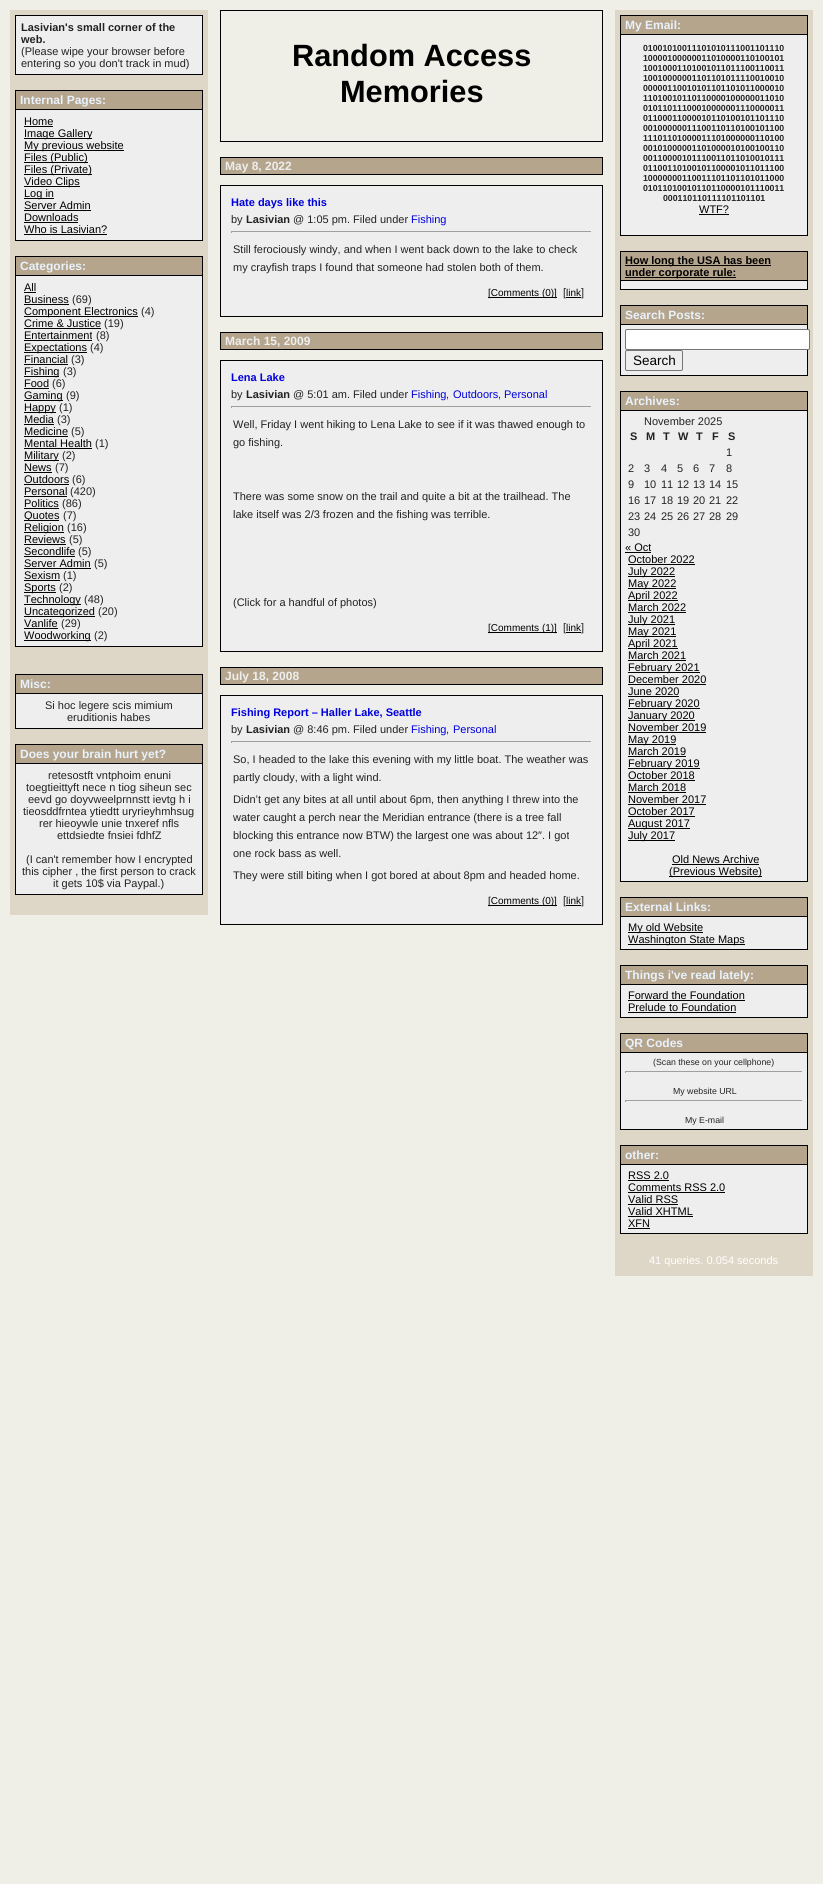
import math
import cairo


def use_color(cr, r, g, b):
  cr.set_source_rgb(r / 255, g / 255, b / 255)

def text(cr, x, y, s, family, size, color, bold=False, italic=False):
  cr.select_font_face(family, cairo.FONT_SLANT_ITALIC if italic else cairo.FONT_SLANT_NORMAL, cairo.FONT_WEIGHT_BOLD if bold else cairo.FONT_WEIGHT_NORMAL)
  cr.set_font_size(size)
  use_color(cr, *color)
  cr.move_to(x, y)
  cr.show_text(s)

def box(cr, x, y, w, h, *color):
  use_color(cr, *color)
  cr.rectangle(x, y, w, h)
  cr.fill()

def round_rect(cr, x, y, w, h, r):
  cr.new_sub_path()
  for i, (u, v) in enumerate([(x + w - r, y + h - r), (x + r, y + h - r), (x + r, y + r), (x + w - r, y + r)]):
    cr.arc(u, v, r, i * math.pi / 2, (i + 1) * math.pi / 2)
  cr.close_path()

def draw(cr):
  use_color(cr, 239, 239, 231)
  cr.paint()
  box(cr, 10, 10, 198, 905, 222, 214, 198)
  use_color(cr, 238, 238, 238)
  cr.rectangle(15.5, 15.5, 187, 59)
  cr.fill_preserve()
  use_color(cr, 0, 0, 0)
  cr.set_line_width(1)
  cr.stroke()
  box(cr, 16, 91, 186, 18, 181, 165, 140)
  box(cr, 15, 90, 188, 1, 0, 0, 0)
  box(cr, 202, 90, 1, 19, 0, 0, 0)
  box(cr, 15, 90, 1, 19, 0, 0, 0)
  use_color(cr, 238, 238, 238)
  cr.rectangle(15.5, 109.5, 187, 131)
  cr.fill_preserve()
  use_color(cr, 0, 0, 0)
  cr.stroke()
  box(cr, 24, 126, 29, 1, 0, 0, 0)
  box(cr, 24, 138, 68, 1, 0, 0, 0)
  box(cr, 24, 150, 100, 1, 0, 0, 0)
  box(cr, 24, 162, 64, 1, 0, 0, 0)
  box(cr, 24, 174, 68, 1, 0, 0, 0)
  box(cr, 24, 186, 56, 1, 0, 0, 0)
  box(cr, 24, 198, 30, 1, 0, 0, 0)
  box(cr, 24, 210, 67, 1, 0, 0, 0)
  box(cr, 24, 222, 54, 1, 0, 0, 0)
  box(cr, 24, 234, 83, 1, 0, 0, 0)
  box(cr, 16, 257, 186, 18, 181, 165, 140)
  box(cr, 15, 256, 188, 1, 0, 0, 0)
  box(cr, 202, 256, 1, 19, 0, 0, 0)
  box(cr, 15, 256, 1, 19, 0, 0, 0)
  use_color(cr, 238, 238, 238)
  cr.rectangle(15.5, 275.5, 187, 371)
  cr.fill_preserve()
  use_color(cr, 0, 0, 0)
  cr.stroke()
  box(cr, 24, 292, 12, 1, 0, 0, 0)
  box(cr, 24, 304, 45, 1, 0, 0, 0)
  box(cr, 24, 316, 114, 1, 0, 0, 0)
  box(cr, 24, 328, 77, 1, 0, 0, 0)
  box(cr, 24, 340, 68, 1, 0, 0, 0)
  box(cr, 24, 352, 63, 1, 0, 0, 0)
  box(cr, 24, 364, 44, 1, 0, 0, 0)
  box(cr, 24, 376, 35, 1, 0, 0, 0)
  box(cr, 24, 388, 25, 1, 0, 0, 0)
  box(cr, 24, 400, 39, 1, 0, 0, 0)
  box(cr, 24, 412, 32, 1, 0, 0, 0)
  box(cr, 24, 424, 30, 1, 0, 0, 0)
  box(cr, 24, 436, 44, 1, 0, 0, 0)
  box(cr, 24, 448, 68, 1, 0, 0, 0)
  box(cr, 24, 460, 35, 1, 0, 0, 0)
  box(cr, 24, 472, 28, 1, 0, 0, 0)
  box(cr, 24, 484, 45, 1, 0, 0, 0)
  box(cr, 24, 496, 43, 1, 0, 0, 0)
  box(cr, 24, 508, 35, 1, 0, 0, 0)
  box(cr, 24, 520, 35, 1, 0, 0, 0)
  box(cr, 24, 532, 40, 1, 0, 0, 0)
  box(cr, 24, 544, 42, 1, 0, 0, 0)
  box(cr, 24, 556, 51, 1, 0, 0, 0)
  box(cr, 24, 568, 67, 1, 0, 0, 0)
  box(cr, 24, 580, 36, 1, 0, 0, 0)
  box(cr, 24, 592, 32, 1, 0, 0, 0)
  box(cr, 24, 604, 57, 1, 0, 0, 0)
  box(cr, 24, 616, 71, 1, 0, 0, 0)
  box(cr, 24, 628, 34, 1, 0, 0, 0)
  box(cr, 24, 640, 67, 1, 0, 0, 0)
  box(cr, 16, 675, 186, 18, 181, 165, 140)
  box(cr, 15, 674, 188, 1, 0, 0, 0)
  box(cr, 202, 674, 1, 19, 0, 0, 0)
  box(cr, 15, 674, 1, 19, 0, 0, 0)
  use_color(cr, 238, 238, 238)
  cr.rectangle(15.5, 693.5, 187, 35)
  cr.fill_preserve()
  use_color(cr, 0, 0, 0)
  cr.stroke()
  box(cr, 16, 745, 186, 18, 181, 165, 140)
  box(cr, 15, 744, 188, 1, 0, 0, 0)
  box(cr, 202, 744, 1, 19, 0, 0, 0)
  box(cr, 15, 744, 1, 19, 0, 0, 0)
  use_color(cr, 238, 238, 238)
  cr.rectangle(15.5, 763.5, 187, 131)
  cr.fill_preserve()
  use_color(cr, 0, 0, 0)
  cr.stroke()
  cr.rectangle(220.5, 10.5, 382, 131)
  cr.stroke()
  box(cr, 615, 10, 198, 1266, 222, 214, 198)
  box(cr, 621, 16, 186, 18, 181, 165, 140)
  box(cr, 620, 15, 188, 1, 0, 0, 0)
  box(cr, 807, 15, 1, 19, 0, 0, 0)
  box(cr, 620, 15, 1, 19, 0, 0, 0)
  use_color(cr, 238, 238, 238)
  cr.rectangle(620.5, 34.5, 187, 201)
  cr.fill_preserve()
  use_color(cr, 0, 0, 0)
  cr.stroke()
  box(cr, 699, 214, 30, 1, 0, 0, 0)
  box(cr, 621, 252, 186, 28, 181, 165, 140)
  box(cr, 620, 251, 188, 1, 0, 0, 0)
  box(cr, 807, 251, 1, 29, 0, 0, 0)
  box(cr, 620, 251, 1, 29, 0, 0, 0)
  box(cr, 625, 265, 146, 1, 0, 0, 0)
  box(cr, 625, 277, 111, 1, 0, 0, 0)
  use_color(cr, 238, 238, 238)
  cr.rectangle(620.5, 280.5, 187, 9)
  cr.fill_preserve()
  use_color(cr, 0, 0, 0)
  cr.stroke()
  box(cr, 621, 306, 186, 18, 181, 165, 140)
  box(cr, 620, 305, 188, 1, 0, 0, 0)
  box(cr, 807, 305, 1, 19, 0, 0, 0)
  box(cr, 620, 305, 1, 19, 0, 0, 0)
  use_color(cr, 238, 238, 238)
  cr.rectangle(620.5, 324.5, 187, 51)
  cr.fill_preserve()
  use_color(cr, 0, 0, 0)
  cr.stroke()
  use_color(cr, 255, 255, 255)
  round_rect(cr, 625.5, 329.5, 184, 20, 1.5)
  cr.fill_preserve()
  use_color(cr, 118, 118, 118)
  cr.stroke()
  round_rect(cr, 625.5, 350.5, 57, 20, 1.5)
  cr.stroke()
  box(cr, 621, 392, 186, 18, 181, 165, 140)
  box(cr, 620, 391, 188, 1, 0, 0, 0)
  box(cr, 807, 391, 1, 19, 0, 0, 0)
  box(cr, 620, 391, 1, 19, 0, 0, 0)
  use_color(cr, 238, 238, 238)
  cr.rectangle(620.5, 410.5, 187, 471)
  cr.fill_preserve()
  use_color(cr, 0, 0, 0)
  cr.stroke()
  box(cr, 625, 552, 26, 1, 0, 0, 0)
  box(cr, 628, 564, 67, 1, 0, 0, 0)
  box(cr, 628, 576, 47, 1, 0, 0, 0)
  box(cr, 628, 588, 48, 1, 0, 0, 0)
  box(cr, 628, 600, 50, 1, 0, 0, 0)
  box(cr, 628, 612, 58, 1, 0, 0, 0)
  box(cr, 628, 624, 47, 1, 0, 0, 0)
  box(cr, 628, 636, 48, 1, 0, 0, 0)
  box(cr, 628, 648, 50, 1, 0, 0, 0)
  box(cr, 628, 660, 58, 1, 0, 0, 0)
  box(cr, 628, 672, 72, 1, 0, 0, 0)
  box(cr, 628, 684, 78, 1, 0, 0, 0)
  box(cr, 628, 696, 51, 1, 0, 0, 0)
  box(cr, 628, 708, 72, 1, 0, 0, 0)
  box(cr, 628, 720, 67, 1, 0, 0, 0)
  box(cr, 628, 732, 78, 1, 0, 0, 0)
  box(cr, 628, 744, 48, 1, 0, 0, 0)
  box(cr, 628, 756, 58, 1, 0, 0, 0)
  box(cr, 628, 768, 72, 1, 0, 0, 0)
  box(cr, 628, 780, 67, 1, 0, 0, 0)
  box(cr, 628, 792, 58, 1, 0, 0, 0)
  box(cr, 628, 804, 78, 1, 0, 0, 0)
  box(cr, 628, 816, 67, 1, 0, 0, 0)
  box(cr, 628, 828, 62, 1, 0, 0, 0)
  box(cr, 628, 840, 47, 1, 0, 0, 0)
  box(cr, 672, 864, 87, 1, 0, 0, 0)
  box(cr, 669, 876, 93, 1, 0, 0, 0)
  box(cr, 621, 898, 186, 18, 181, 165, 140)
  box(cr, 620, 897, 188, 1, 0, 0, 0)
  box(cr, 807, 897, 1, 19, 0, 0, 0)
  box(cr, 620, 897, 1, 19, 0, 0, 0)
  use_color(cr, 238, 238, 238)
  cr.rectangle(620.5, 916.5, 187, 33)
  cr.fill_preserve()
  use_color(cr, 0, 0, 0)
  cr.stroke()
  box(cr, 628, 932, 75, 1, 0, 0, 0)
  box(cr, 628, 944, 117, 1, 0, 0, 0)
  box(cr, 621, 966, 186, 18, 181, 165, 140)
  box(cr, 620, 965, 188, 1, 0, 0, 0)
  box(cr, 807, 965, 1, 19, 0, 0, 0)
  box(cr, 620, 965, 1, 19, 0, 0, 0)
  use_color(cr, 238, 238, 238)
  cr.rectangle(620.5, 984.5, 187, 33)
  cr.fill_preserve()
  use_color(cr, 0, 0, 0)
  cr.stroke()
  box(cr, 628, 1000, 117, 1, 0, 0, 0)
  box(cr, 628, 1012, 108, 1, 0, 0, 0)
  box(cr, 621, 1034, 186, 18, 181, 165, 140)
  box(cr, 620, 1033, 188, 1, 0, 0, 0)
  box(cr, 807, 1033, 1, 19, 0, 0, 0)
  box(cr, 620, 1033, 1, 19, 0, 0, 0)
  use_color(cr, 238, 238, 238)
  cr.rectangle(620.5, 1052.5, 187, 77)
  cr.fill_preserve()
  use_color(cr, 0, 0, 0)
  cr.stroke()
  box(cr, 625, 1071, 178, 1, 159, 159, 159)
  box(cr, 802, 1071, 1, 2, 238, 238, 238)
  box(cr, 625, 1071, 1, 2, 159, 159, 159)
  box(cr, 625, 1100, 178, 1, 159, 159, 159)
  box(cr, 802, 1100, 1, 2, 238, 238, 238)
  box(cr, 625, 1100, 1, 2, 159, 159, 159)
  box(cr, 621, 1146, 186, 18, 181, 165, 140)
  box(cr, 620, 1145, 188, 1, 0, 0, 0)
  box(cr, 807, 1145, 1, 19, 0, 0, 0)
  box(cr, 620, 1145, 1, 19, 0, 0, 0)
  use_color(cr, 238, 238, 238)
  cr.rectangle(620.5, 1164.5, 187, 69)
  cr.fill_preserve()
  use_color(cr, 0, 0, 0)
  cr.stroke()
  box(cr, 628, 1180, 41, 1, 0, 0, 0)
  box(cr, 628, 1192, 97, 1, 0, 0, 0)
  box(cr, 628, 1204, 50, 1, 0, 0, 0)
  box(cr, 628, 1216, 28, 1, 0, 0, 0)
  cr.new_path()
  cr.move_to(655.5, 1216.5)
  cr.line_to(693, 1216.5)
  cr.set_dash([1, 1])
  cr.stroke()
  box(cr, 656, 1216, 37, 1, 0, 0, 0)
  box(cr, 628, 1228, 22, 1, 0, 0, 0)
  use_color(cr, 181, 165, 140)
  cr.rectangle(220.5, 157.5, 382, 17)
  cr.fill_preserve()
  use_color(cr, 0, 0, 0)
  cr.set_dash([])
  cr.stroke()
  use_color(cr, 238, 238, 238)
  cr.rectangle(220.5, 185.5, 382, 131)
  cr.fill_preserve()
  use_color(cr, 0, 0, 0)
  cr.stroke()
  box(cr, 231, 231, 361, 1, 159, 159, 159)
  box(cr, 591, 231, 1, 2, 238, 238, 238)
  box(cr, 231, 231, 1, 2, 159, 159, 159)
  box(cr, 488, 297, 69, 1, 0, 0, 0)
  box(cr, 566, 297, 15, 1, 0, 0, 0)
  use_color(cr, 181, 165, 140)
  cr.rectangle(220.5, 332.5, 382, 17)
  cr.fill_preserve()
  use_color(cr, 0, 0, 0)
  cr.stroke()
  use_color(cr, 238, 238, 238)
  cr.rectangle(220.5, 360.5, 382, 291)
  cr.fill_preserve()
  use_color(cr, 0, 0, 0)
  cr.stroke()
  box(cr, 231, 406, 361, 1, 159, 159, 159)
  box(cr, 591, 406, 1, 2, 238, 238, 238)
  box(cr, 231, 406, 1, 2, 159, 159, 159)
  box(cr, 488, 632, 69, 1, 0, 0, 0)
  box(cr, 566, 632, 15, 1, 0, 0, 0)
  use_color(cr, 181, 165, 140)
  cr.rectangle(220.5, 667.5, 382, 17)
  cr.fill_preserve()
  use_color(cr, 0, 0, 0)
  cr.stroke()
  use_color(cr, 238, 238, 238)
  cr.rectangle(220.5, 695.5, 382, 229)
  cr.fill_preserve()
  use_color(cr, 0, 0, 0)
  cr.stroke()
  box(cr, 231, 741, 361, 1, 159, 159, 159)
  box(cr, 591, 741, 1, 2, 238, 238, 238)
  box(cr, 231, 741, 1, 2, 159, 159, 159)
  box(cr, 488, 905, 69, 1, 0, 0, 0)
  box(cr, 566, 905, 15, 1, 0, 0, 0)
  text(cr, 21, 31, "Lasivian's small corner of the", "Liberation Sans", 11, (34, 34, 34), bold=True)
  text(cr, 21, 43, "web.", "Liberation Sans", 11, (34, 34, 34), bold=True)
  text(cr, 21, 55, "(Please wipe your browser before", "Liberation Sans", 11, (34, 34, 34))
  text(cr, 21, 67, "entering so you don't track in mud)", "Liberation Sans", 11, (34, 34, 34))
  text(cr, 20, 104, "Internal Pages:", "Liberation Sans", 12, (233, 242, 252), bold=True)
  text(cr, 24, 125, "Home", "Liberation Sans", 11, (0, 0, 0))
  text(cr, 24, 137, "Image Gallery", "Liberation Sans", 11, (0, 0, 0))
  text(cr, 24, 149, "My previous website", "Liberation Sans", 11, (0, 0, 0))
  text(cr, 24, 161, "Files (Public)", "Liberation Sans", 11, (0, 0, 0))
  text(cr, 24, 173, "Files (Private)", "Liberation Sans", 11, (0, 0, 0))
  text(cr, 24, 185, "Video Clips", "Liberation Sans", 11, (0, 0, 0))
  text(cr, 24, 197, "Log in", "Liberation Sans", 11, (0, 0, 0))
  text(cr, 24, 209, "Server Admin", "Liberation Sans", 11, (0, 0, 0))
  text(cr, 24, 221, "Downloads", "Liberation Sans", 11, (0, 0, 0))
  text(cr, 24, 233, "Who is Lasivian?", "Liberation Sans", 11, (0, 0, 0))
  text(cr, 20, 270, "Categories:", "Liberation Sans", 12, (233, 242, 252), bold=True)
  text(cr, 24, 291, "All", "Liberation Sans", 11, (0, 0, 0))
  text(cr, 24, 303, "Business", "Liberation Sans", 11, (0, 0, 0))
  text(cr, 72, 303, "(69)", "Liberation Sans", 11, (34, 34, 34))
  text(cr, 24, 315, "Component Electronics", "Liberation Sans", 11, (0, 0, 0))
  text(cr, 141, 315, "(4)", "Liberation Sans", 11, (34, 34, 34))
  text(cr, 24, 327, "Crime & Justice", "Liberation Sans", 11, (0, 0, 0))
  text(cr, 104, 327, "(19)", "Liberation Sans", 11, (34, 34, 34))
  text(cr, 24, 339, "Entertainment", "Liberation Sans", 11, (0, 0, 0))
  text(cr, 96, 339, "(8)", "Liberation Sans", 11, (34, 34, 34))
  text(cr, 24, 351, "Expectations", "Liberation Sans", 11, (0, 0, 0))
  text(cr, 90, 351, "(4)", "Liberation Sans", 11, (34, 34, 34))
  text(cr, 24, 363, "Financial", "Liberation Sans", 11, (0, 0, 0))
  text(cr, 71, 363, "(3)", "Liberation Sans", 11, (34, 34, 34))
  text(cr, 24, 375, "Fishing", "Liberation Sans", 11, (0, 0, 0))
  text(cr, 63, 375, "(3)", "Liberation Sans", 11, (34, 34, 34))
  text(cr, 24, 387, "Food", "Liberation Sans", 11, (0, 0, 0))
  text(cr, 52, 387, "(6)", "Liberation Sans", 11, (34, 34, 34))
  text(cr, 24, 399, "Gaming", "Liberation Sans", 11, (0, 0, 0))
  text(cr, 66, 399, "(9)", "Liberation Sans", 11, (34, 34, 34))
  text(cr, 24, 411, "Happy", "Liberation Sans", 11, (0, 0, 0))
  text(cr, 59, 411, "(1)", "Liberation Sans", 11, (34, 34, 34))
  text(cr, 24, 423, "Media", "Liberation Sans", 11, (0, 0, 0))
  text(cr, 57, 423, "(3)", "Liberation Sans", 11, (34, 34, 34))
  text(cr, 24, 435, "Medicine", "Liberation Sans", 11, (0, 0, 0))
  text(cr, 71, 435, "(5)", "Liberation Sans", 11, (34, 34, 34))
  text(cr, 24, 447, "Mental Health", "Liberation Sans", 11, (0, 0, 0))
  text(cr, 95, 447, "(1)", "Liberation Sans", 11, (34, 34, 34))
  text(cr, 24, 459, "Military", "Liberation Sans", 11, (0, 0, 0))
  text(cr, 62, 459, "(2)", "Liberation Sans", 11, (34, 34, 34))
  text(cr, 24, 471, "News", "Liberation Sans", 11, (0, 0, 0))
  text(cr, 55, 471, "(7)", "Liberation Sans", 11, (34, 34, 34))
  text(cr, 24, 483, "Outdoors", "Liberation Sans", 11, (0, 0, 0))
  text(cr, 72, 483, "(6)", "Liberation Sans", 11, (34, 34, 34))
  text(cr, 24, 495, "Personal", "Liberation Sans", 11, (0, 0, 0))
  text(cr, 70, 495, "(420)", "Liberation Sans", 11, (34, 34, 34))
  text(cr, 24, 507, "Politics", "Liberation Sans", 11, (0, 0, 0))
  text(cr, 62, 507, "(86)", "Liberation Sans", 11, (34, 34, 34))
  text(cr, 24, 519, "Quotes", "Liberation Sans", 11, (0, 0, 0))
  text(cr, 63, 519, "(7)", "Liberation Sans", 11, (34, 34, 34))
  text(cr, 24, 531, "Religion", "Liberation Sans", 11, (0, 0, 0))
  text(cr, 67, 531, "(16)", "Liberation Sans", 11, (34, 34, 34))
  text(cr, 24, 543, "Reviews", "Liberation Sans", 11, (0, 0, 0))
  text(cr, 69, 543, "(5)", "Liberation Sans", 11, (34, 34, 34))
  text(cr, 24, 555, "Secondlife", "Liberation Sans", 11, (0, 0, 0))
  text(cr, 78, 555, "(5)", "Liberation Sans", 11, (34, 34, 34))
  text(cr, 24, 567, "Server Admin", "Liberation Sans", 11, (0, 0, 0))
  text(cr, 94, 567, "(5)", "Liberation Sans", 11, (34, 34, 34))
  text(cr, 24, 579, "Sexism", "Liberation Sans", 11, (0, 0, 0))
  text(cr, 63, 579, "(1)", "Liberation Sans", 11, (34, 34, 34))
  text(cr, 24, 591, "Sports", "Liberation Sans", 11, (0, 0, 0))
  text(cr, 59, 591, "(2)", "Liberation Sans", 11, (34, 34, 34))
  text(cr, 24, 603, "Technology", "Liberation Sans", 11, (0, 0, 0))
  text(cr, 84, 603, "(48)", "Liberation Sans", 11, (34, 34, 34))
  text(cr, 24, 615, "Uncategorized", "Liberation Sans", 11, (0, 0, 0))
  text(cr, 98, 615, "(20)", "Liberation Sans", 11, (34, 34, 34))
  text(cr, 24, 627, "Vanlife", "Liberation Sans", 11, (0, 0, 0))
  text(cr, 61, 627, "(29)", "Liberation Sans", 11, (34, 34, 34))
  text(cr, 24, 639, "Woodworking", "Liberation Sans", 11, (0, 0, 0))
  text(cr, 94, 639, "(2)", "Liberation Sans", 11, (34, 34, 34))
  text(cr, 20, 688, "Misc:", "Liberation Sans", 12, (233, 242, 252), bold=True)
  text(cr, 45, 709, "Si hoc legere scis mimium", "Liberation Sans", 11, (34, 34, 34))
  text(cr, 67, 721, "eruditionis habes", "Liberation Sans", 11, (34, 34, 34))
  text(cr, 20, 758, "Does your brain hurt yet?", "Liberation Sans", 12, (233, 242, 252), bold=True)
  text(cr, 48, 779, "retesostft vntphoim enuni", "Liberation Sans", 11, (34, 34, 34))
  text(cr, 26, 791, "toegtieittyft nece n tiog siheun sec", "Liberation Sans", 11, (34, 34, 34))
  text(cr, 28, 803, "eevd go doyvweelprnnstt ievtg h i", "Liberation Sans", 11, (34, 34, 34))
  text(cr, 23, 815, "tieosddfrntea ytiedtt uryrieyhmhsug", "Liberation Sans", 11, (34, 34, 34))
  text(cr, 39, 827, "rer hieoywle unie tnxeref nfls", "Liberation Sans", 11, (34, 34, 34))
  text(cr, 57, 839, "ettdsiedte fnsiei fdhfZ", "Liberation Sans", 11, (34, 34, 34))
  text(cr, 26, 863, "(I can't remember how I encrypted", "Liberation Sans", 11, (34, 34, 34))
  text(cr, 22, 875, "this cipher , the first person to crack", "Liberation Sans", 11, (34, 34, 34))
  text(cr, 53, 887, "it gets 10$ via Paypal.)", "Liberation Sans", 11, (34, 34, 34))
  text(cr, 292, 66, "Random Access", "Liberation Sans", 30.75, (0, 0, 0), bold=True)
  text(cr, 340, 102, "Memories", "Liberation Sans", 30.75, (0, 0, 0), bold=True)
  text(cr, 625, 29, "My Email:", "Liberation Sans", 12, (233, 242, 252), bold=True)
  text(cr, 643, 51, "01001010011101010111001101110", "Liberation Sans", 8.75, (34, 34, 34), bold=True)
  text(cr, 643, 61, "10000100000011010000110100101", "Liberation Sans", 8.75, (34, 34, 34), bold=True)
  text(cr, 643, 71, "10010001101001011011100110011", "Liberation Sans", 8.75, (34, 34, 34), bold=True)
  text(cr, 643, 81, "10010000001101101011110010010", "Liberation Sans", 8.75, (34, 34, 34), bold=True)
  text(cr, 643, 91, "00000110010101101101011000010", "Liberation Sans", 8.75, (34, 34, 34), bold=True)
  text(cr, 643, 101, "11010010110110000100000011010", "Liberation Sans", 8.75, (34, 34, 34), bold=True)
  text(cr, 643, 111, "01011011100010000001110000011", "Liberation Sans", 8.75, (34, 34, 34), bold=True)
  text(cr, 643, 121, "01100011000010110100101101110", "Liberation Sans", 8.75, (34, 34, 34), bold=True)
  text(cr, 643, 131, "00100000011100110110100101100", "Liberation Sans", 8.75, (34, 34, 34), bold=True)
  text(cr, 643, 141, "11101101000011101000000110100", "Liberation Sans", 8.75, (34, 34, 34), bold=True)
  text(cr, 643, 151, "00101000001101000010100100110", "Liberation Sans", 8.75, (34, 34, 34), bold=True)
  text(cr, 643, 161, "00110000101110011011010010111", "Liberation Sans", 8.75, (34, 34, 34), bold=True)
  text(cr, 643, 171, "01100110100101100001011011100", "Liberation Sans", 8.75, (34, 34, 34), bold=True)
  text(cr, 643, 181, "10000000110011101101101011000", "Liberation Sans", 8.75, (34, 34, 34), bold=True)
  text(cr, 643, 191, "01011010010110110000101110011", "Liberation Sans", 8.75, (34, 34, 34), bold=True)
  text(cr, 663, 201, "000110110111101101101", "Liberation Sans", 8.75, (34, 34, 34), bold=True)
  text(cr, 699, 213, "WTF?", "Liberation Sans", 11, (0, 0, 0))
  text(cr, 625, 264, "How long the USA has been", "Liberation Sans", 11, (0, 0, 0), bold=True)
  text(cr, 625, 276, "under corporate rule:", "Liberation Sans", 11, (0, 0, 0), bold=True)
  text(cr, 625, 319, "Search Posts:", "Liberation Sans", 12, (233, 242, 252), bold=True)
  text(cr, 633, 365, "Search", "Liberation Sans", 13.5, (0, 0, 0))
  text(cr, 625, 405, "Archives:", "Liberation Sans", 12, (233, 242, 252), bold=True)
  text(cr, 644, 425, "November 2025", "Liberation Sans", 11, (34, 34, 34))
  text(cr, 630, 440, "S", "Liberation Sans", 11, (34, 34, 34), bold=True)
  text(cr, 646, 440, "M", "Liberation Sans", 11, (34, 34, 34), bold=True)
  text(cr, 663, 440, "T", "Liberation Sans", 11, (34, 34, 34), bold=True)
  text(cr, 678, 440, "W", "Liberation Sans", 11, (34, 34, 34), bold=True)
  text(cr, 696, 440, "T", "Liberation Sans", 11, (34, 34, 34), bold=True)
  text(cr, 712, 440, "F", "Liberation Sans", 11, (34, 34, 34), bold=True)
  text(cr, 728, 440, "S", "Liberation Sans", 11, (34, 34, 34), bold=True)
  text(cr, 726, 456, "1", "Liberation Sans", 11, (34, 34, 34))
  text(cr, 628, 472, "2", "Liberation Sans", 11, (34, 34, 34))
  text(cr, 644, 472, "3", "Liberation Sans", 11, (34, 34, 34))
  text(cr, 661, 472, "4", "Liberation Sans", 11, (34, 34, 34))
  text(cr, 677, 472, "5", "Liberation Sans", 11, (34, 34, 34))
  text(cr, 693, 472, "6", "Liberation Sans", 11, (34, 34, 34))
  text(cr, 709, 472, "7", "Liberation Sans", 11, (34, 34, 34))
  text(cr, 726, 472, "8", "Liberation Sans", 11, (34, 34, 34))
  text(cr, 628, 488, "9", "Liberation Sans", 11, (34, 34, 34))
  text(cr, 644, 488, "10", "Liberation Sans", 11, (34, 34, 34))
  text(cr, 661, 488, "11", "Liberation Sans", 11, (34, 34, 34))
  text(cr, 677, 488, "12", "Liberation Sans", 11, (34, 34, 34))
  text(cr, 693, 488, "13", "Liberation Sans", 11, (34, 34, 34))
  text(cr, 709, 488, "14", "Liberation Sans", 11, (34, 34, 34))
  text(cr, 726, 488, "15", "Liberation Sans", 11, (34, 34, 34))
  text(cr, 628, 504, "16", "Liberation Sans", 11, (34, 34, 34))
  text(cr, 644, 504, "17", "Liberation Sans", 11, (34, 34, 34))
  text(cr, 661, 504, "18", "Liberation Sans", 11, (34, 34, 34))
  text(cr, 677, 504, "19", "Liberation Sans", 11, (34, 34, 34))
  text(cr, 693, 504, "20", "Liberation Sans", 11, (34, 34, 34))
  text(cr, 709, 504, "21", "Liberation Sans", 11, (34, 34, 34))
  text(cr, 726, 504, "22", "Liberation Sans", 11, (34, 34, 34))
  text(cr, 628, 520, "23", "Liberation Sans", 11, (34, 34, 34))
  text(cr, 644, 520, "24", "Liberation Sans", 11, (34, 34, 34))
  text(cr, 661, 520, "25", "Liberation Sans", 11, (34, 34, 34))
  text(cr, 677, 520, "26", "Liberation Sans", 11, (34, 34, 34))
  text(cr, 693, 520, "27", "Liberation Sans", 11, (34, 34, 34))
  text(cr, 709, 520, "28", "Liberation Sans", 11, (34, 34, 34))
  text(cr, 726, 520, "29", "Liberation Sans", 11, (34, 34, 34))
  text(cr, 628, 536, "30", "Liberation Sans", 11, (34, 34, 34))
  text(cr, 625, 551, "« Oct", "Liberation Sans", 11, (0, 0, 0))
  text(cr, 628, 563, "October 2022", "Liberation Sans", 11, (0, 0, 0))
  text(cr, 628, 575, "July 2022", "Liberation Sans", 11, (0, 0, 0))
  text(cr, 628, 587, "May 2022", "Liberation Sans", 11, (0, 0, 0))
  text(cr, 628, 599, "April 2022", "Liberation Sans", 11, (0, 0, 0))
  text(cr, 628, 611, "March 2022", "Liberation Sans", 11, (0, 0, 0))
  text(cr, 628, 623, "July 2021", "Liberation Sans", 11, (0, 0, 0))
  text(cr, 628, 635, "May 2021", "Liberation Sans", 11, (0, 0, 0))
  text(cr, 628, 647, "April 2021", "Liberation Sans", 11, (0, 0, 0))
  text(cr, 628, 659, "March 2021", "Liberation Sans", 11, (0, 0, 0))
  text(cr, 628, 671, "February 2021", "Liberation Sans", 11, (0, 0, 0))
  text(cr, 628, 683, "December 2020", "Liberation Sans", 11, (0, 0, 0))
  text(cr, 628, 695, "June 2020", "Liberation Sans", 11, (0, 0, 0))
  text(cr, 628, 707, "February 2020", "Liberation Sans", 11, (0, 0, 0))
  text(cr, 628, 719, "January 2020", "Liberation Sans", 11, (0, 0, 0))
  text(cr, 628, 731, "November 2019", "Liberation Sans", 11, (0, 0, 0))
  text(cr, 628, 743, "May 2019", "Liberation Sans", 11, (0, 0, 0))
  text(cr, 628, 755, "March 2019", "Liberation Sans", 11, (0, 0, 0))
  text(cr, 628, 767, "February 2019", "Liberation Sans", 11, (0, 0, 0))
  text(cr, 628, 779, "October 2018", "Liberation Sans", 11, (0, 0, 0))
  text(cr, 628, 791, "March 2018", "Liberation Sans", 11, (0, 0, 0))
  text(cr, 628, 803, "November 2017", "Liberation Sans", 11, (0, 0, 0))
  text(cr, 628, 815, "October 2017", "Liberation Sans", 11, (0, 0, 0))
  text(cr, 628, 827, "August 2017", "Liberation Sans", 11, (0, 0, 0))
  text(cr, 628, 839, "July 2017", "Liberation Sans", 11, (0, 0, 0))
  text(cr, 672, 863, "Old News Archive", "Liberation Sans", 11, (0, 0, 0))
  text(cr, 669, 875, "(Previous Website)", "Liberation Sans", 11, (0, 0, 0))
  text(cr, 625, 911, "External Links:", "Liberation Sans", 12, (233, 242, 252), bold=True)
  text(cr, 628, 931, "My old Website", "Liberation Sans", 11, (0, 0, 0))
  text(cr, 628, 943, "Washington State Maps", "Liberation Sans", 11, (0, 0, 0))
  text(cr, 625, 979, "Things i've read lately:", "Liberation Sans", 12, (233, 242, 252), bold=True)
  text(cr, 628, 999, "Forward the Foundation", "Liberation Sans", 11, (0, 0, 0))
  text(cr, 628, 1011, "Prelude to Foundation", "Liberation Sans", 11, (0, 0, 0))
  text(cr, 625, 1047, "QR Codes", "Liberation Sans", 12, (233, 242, 252), bold=True)
  text(cr, 653, 1065, "(Scan these on your cellphone)", "Liberation Sans", 8.75, (34, 34, 34))
  text(cr, 673, 1094, "My website URL", "Liberation Sans", 8.75, (34, 34, 34))
  text(cr, 685, 1123, "My E-mail", "Liberation Sans", 8.75, (34, 34, 34))
  text(cr, 625, 1159, "other:", "Liberation Sans", 12, (233, 242, 252), bold=True)
  text(cr, 628, 1179, "RSS 2.0", "Liberation Sans", 11, (0, 0, 0))
  text(cr, 628, 1191, "Comments RSS 2.0", "Liberation Sans", 11, (0, 0, 0))
  text(cr, 628, 1203, "Valid RSS", "Liberation Sans", 11, (0, 0, 0))
  text(cr, 628, 1215, "Valid XHTML", "Liberation Sans", 11, (0, 0, 0))
  text(cr, 628, 1227, "XFN", "Liberation Sans", 11, (0, 0, 0))
  text(cr, 649, 1264, "41 queries. 0.054 seconds", "Liberation Sans", 11, (255, 255, 255))
  text(cr, 225, 170, "May 8, 2022", "Liberation Sans", 12, (238, 238, 238), bold=True)
  text(cr, 231, 206, "Hate days like this", "Liberation Sans", 11, (0, 0, 221), bold=True)
  text(cr, 231, 223, "by", "Liberation Sans", 11, (34, 34, 34))
  text(cr, 246, 223, "Lasivian", "Liberation Sans", 11, (34, 34, 34), bold=True)
  text(cr, 293, 223, "@ 1:05 pm. Filed under", "Liberation Sans", 11, (34, 34, 34))
  text(cr, 411, 223, "Fishing", "Liberation Sans", 11, (0, 0, 221))
  text(cr, 233, 253, "Still ferociously windy, and when I went back down to the lake to check", "Liberation Sans", 11, (34, 34, 34))
  text(cr, 233, 271, "my crayfish traps I found that someone had stolen both of them.", "Liberation Sans", 11, (34, 34, 34))
  text(cr, 488, 296, "[Comments (0)]", "Liberation Sans", 10, (0, 0, 0))
  text(cr, 563, 296, "[", "Liberation Sans", 11, (34, 34, 34))
  text(cr, 566, 296, "link", "Liberation Sans", 10, (0, 0, 0))
  text(cr, 581, 296, "]", "Liberation Sans", 11, (34, 34, 34))
  text(cr, 225, 345, "March 15, 2009", "Liberation Sans", 12, (238, 238, 238), bold=True)
  text(cr, 231, 381, "Lena Lake", "Liberation Sans", 11, (0, 0, 221), bold=True)
  text(cr, 231, 398, "by", "Liberation Sans", 11, (34, 34, 34))
  text(cr, 246, 398, "Lasivian", "Liberation Sans", 11, (34, 34, 34), bold=True)
  text(cr, 293, 398, "@ 5:01 am. Filed under", "Liberation Sans", 11, (34, 34, 34))
  text(cr, 411, 398, "Fishing", "Liberation Sans", 11, (0, 0, 221))
  text(cr, 446, 398, ",", "Liberation Sans", 11, (34, 34, 34))
  text(cr, 453, 398, "Outdoors", "Liberation Sans", 11, (0, 0, 221))
  text(cr, 498, 398, ",", "Liberation Sans", 11, (34, 34, 34))
  text(cr, 504, 398, "Personal", "Liberation Sans", 11, (0, 0, 221))
  text(cr, 233, 428, "Well, Friday I went hiking to Lena Lake to see if it was thawed enough to", "Liberation Sans", 11, (34, 34, 34))
  text(cr, 233, 446, "go fishing.", "Liberation Sans", 11, (34, 34, 34))
  text(cr, 233, 500, "There was some snow on the trail and quite a bit at the trailhead. The", "Liberation Sans", 11, (34, 34, 34))
  text(cr, 233, 518, "lake itself was 2/3 frozen and the fishing was terrible.", "Liberation Sans", 11, (34, 34, 34))
  text(cr, 233, 606, "(Click for a handful of photos)", "Liberation Sans", 11, (34, 34, 34))
  text(cr, 488, 631, "[Comments (1)]", "Liberation Sans", 10, (0, 0, 0))
  text(cr, 563, 631, "[", "Liberation Sans", 11, (34, 34, 34))
  text(cr, 566, 631, "link", "Liberation Sans", 10, (0, 0, 0))
  text(cr, 581, 631, "]", "Liberation Sans", 11, (34, 34, 34))
  text(cr, 225, 680, "July 18, 2008", "Liberation Sans", 12, (238, 238, 238), bold=True)
  text(cr, 231, 716, "Fishing Report – Haller Lake, Seattle", "Liberation Sans", 11, (0, 0, 221), bold=True)
  text(cr, 231, 733, "by", "Liberation Sans", 11, (34, 34, 34))
  text(cr, 246, 733, "Lasivian", "Liberation Sans", 11, (34, 34, 34), bold=True)
  text(cr, 293, 733, "@ 8:46 pm. Filed under", "Liberation Sans", 11, (34, 34, 34))
  text(cr, 411, 733, "Fishing", "Liberation Sans", 11, (0, 0, 221))
  text(cr, 446, 733, ",", "Liberation Sans", 11, (34, 34, 34))
  text(cr, 453, 733, "Personal", "Liberation Sans", 11, (0, 0, 221))
  text(cr, 233, 763, "So, I headed to the lake this evening with my little boat. The weather was", "Liberation Sans", 11, (34, 34, 34))
  text(cr, 233, 781, "partly cloudy, with a light wind.", "Liberation Sans", 11, (34, 34, 34))
  text(cr, 233, 803, "Didn’t get any bites at all until about 6pm, then anything I threw into the", "Liberation Sans", 11, (34, 34, 34))
  text(cr, 233, 821, "water caught a perch near the Meridian entrance (there is a tree fall", "Liberation Sans", 11, (34, 34, 34))
  text(cr, 233, 839, "blocking this entrance now BTW) the largest one was about 12″. I got", "Liberation Sans", 11, (34, 34, 34))
  text(cr, 233, 857, "one rock bass as well.", "Liberation Sans", 11, (34, 34, 34))
  text(cr, 233, 879, "They were still biting when I got bored at about 8pm and headed home.", "Liberation Sans", 11, (34, 34, 34))
  text(cr, 488, 904, "[Comments (0)]", "Liberation Sans", 10, (0, 0, 0))
  text(cr, 563, 904, "[", "Liberation Sans", 11, (34, 34, 34))
  text(cr, 566, 904, "link", "Liberation Sans", 10, (0, 0, 0))
  text(cr, 581, 904, "]", "Liberation Sans", 11, (34, 34, 34))


surface = cairo.ImageSurface(cairo.FORMAT_RGB24, 823, 1884)
cr = cairo.Context(surface)
options = cairo.FontOptions()
options.set_hint_metrics(cairo.HINT_METRICS_OFF)
options.set_hint_style(cairo.HINT_STYLE_NONE)
cr.set_font_options(options)
cr.set_miter_limit(4)
draw(cr)
surface.write_to_png("out.png")
